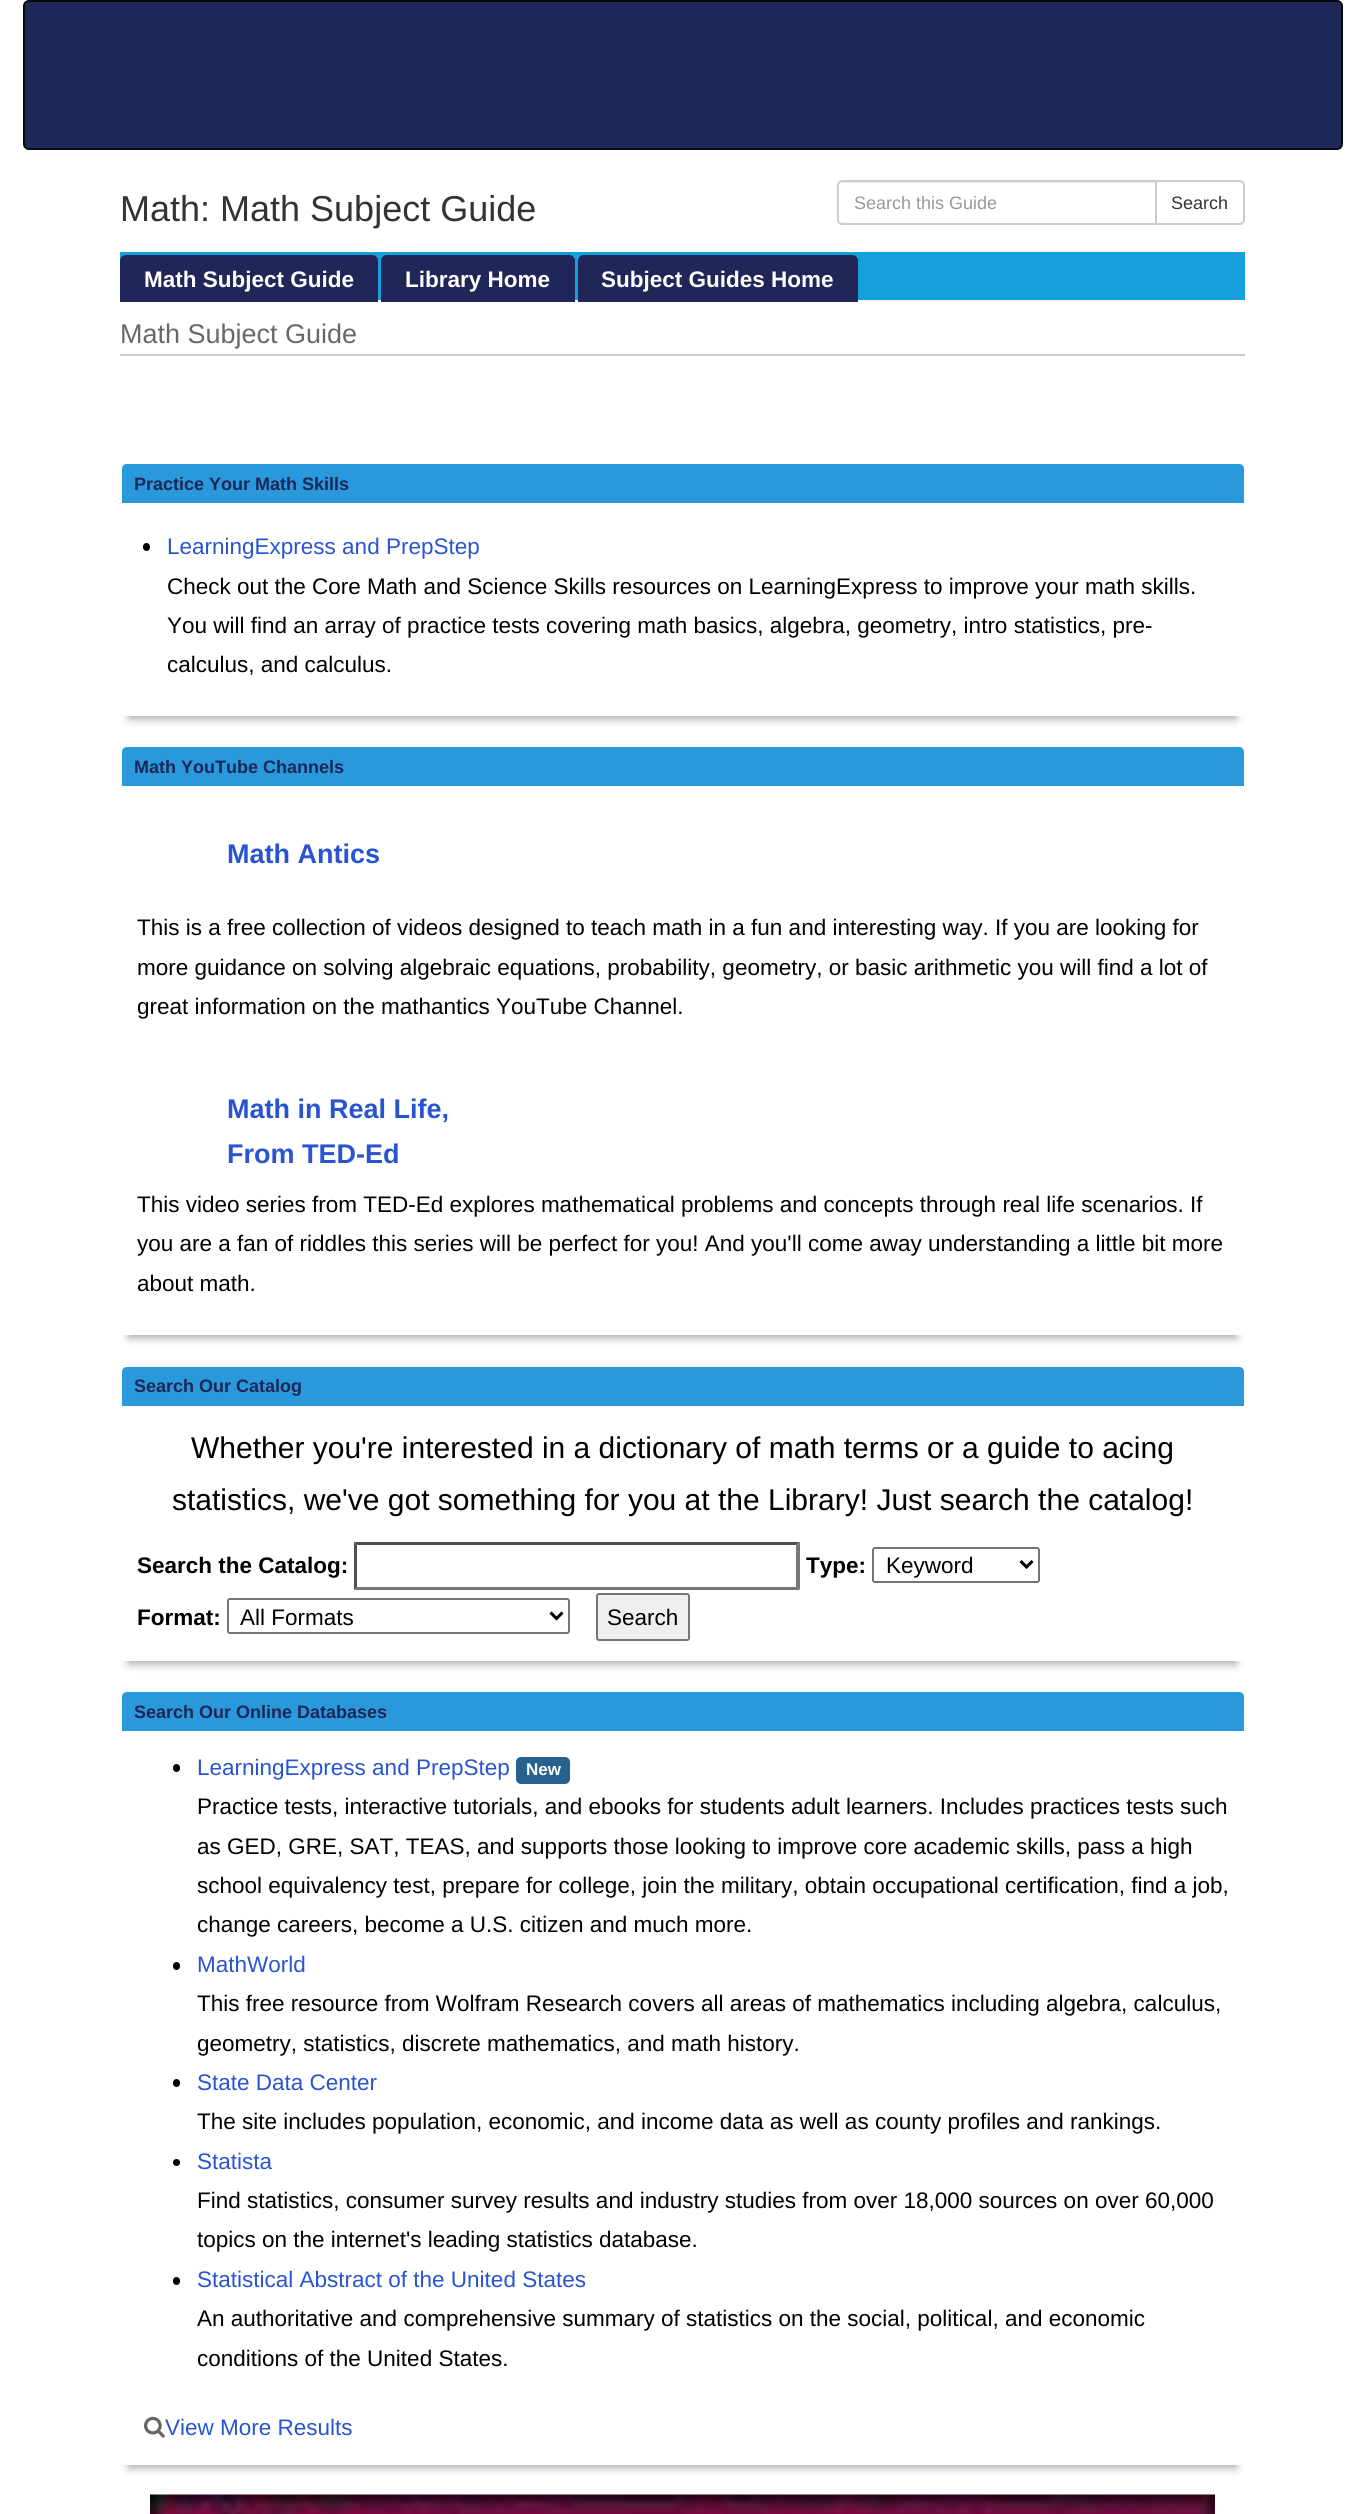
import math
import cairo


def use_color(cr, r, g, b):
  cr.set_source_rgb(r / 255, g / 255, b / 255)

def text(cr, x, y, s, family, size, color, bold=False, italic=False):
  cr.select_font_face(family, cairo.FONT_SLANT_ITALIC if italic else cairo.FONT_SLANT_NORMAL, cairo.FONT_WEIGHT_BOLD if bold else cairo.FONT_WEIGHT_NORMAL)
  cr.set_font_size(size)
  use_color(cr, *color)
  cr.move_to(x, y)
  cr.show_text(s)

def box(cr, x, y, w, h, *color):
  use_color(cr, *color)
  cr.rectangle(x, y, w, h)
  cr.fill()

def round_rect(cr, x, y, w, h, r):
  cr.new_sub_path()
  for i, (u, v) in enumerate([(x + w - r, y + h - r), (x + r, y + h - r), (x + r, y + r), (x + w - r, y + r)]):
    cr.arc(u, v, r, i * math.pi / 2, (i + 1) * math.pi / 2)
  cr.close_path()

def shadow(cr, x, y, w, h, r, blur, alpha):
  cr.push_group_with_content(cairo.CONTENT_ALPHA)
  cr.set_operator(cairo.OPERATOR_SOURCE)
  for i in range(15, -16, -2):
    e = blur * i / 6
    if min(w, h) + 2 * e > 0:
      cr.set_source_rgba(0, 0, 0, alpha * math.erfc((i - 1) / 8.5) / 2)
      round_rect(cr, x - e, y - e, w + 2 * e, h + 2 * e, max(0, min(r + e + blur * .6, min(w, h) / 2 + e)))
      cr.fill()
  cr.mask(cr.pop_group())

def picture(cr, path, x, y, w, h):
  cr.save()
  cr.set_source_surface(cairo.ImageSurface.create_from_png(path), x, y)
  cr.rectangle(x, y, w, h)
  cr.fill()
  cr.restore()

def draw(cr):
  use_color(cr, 255, 255, 255)
  cr.paint()
  use_color(cr, 29, 39, 88)
  round_rect(cr, 24, 1, 1318, 148, 5)
  cr.fill_preserve()
  use_color(cr, 8, 8, 8)
  cr.stroke()
  use_color(cr, 236, 236, 236)
  cr.new_path()
  cr.move_to(842, 183)
  cr.line_to(1155, 183)
  cr.line_to(1155, 182)
  cr.line_to(842, 182)
  cr.curve_to(841, 182, 840, 183, 839, 184)
  cr.close_path()
  cr.fill()
  cr.new_path()
  cr.move_to(842, 181)
  cr.line_to(1156, 181)
  cr.line_to(1156, 224)
  cr.line_to(842, 224)
  cr.curve_to(840, 224, 838, 222, 838, 220)
  cr.line_to(838, 185)
  cr.curve_to(838, 183, 840, 181, 842, 181)
  cr.close_path()
  use_color(cr, 204, 204, 204)
  cr.stroke()
  use_color(cr, 255, 255, 255)
  cr.new_path()
  cr.move_to(1156, 181)
  cr.line_to(1240, 181)
  cr.curve_to(1242, 181, 1244, 183, 1244, 185)
  cr.line_to(1244, 220)
  cr.curve_to(1244, 222, 1242, 224, 1240, 224)
  cr.line_to(1156, 224)
  cr.close_path()
  cr.fill_preserve()
  use_color(cr, 204, 204, 204)
  cr.stroke()
  box(cr, 120, 252, 1125, 48, 22, 160, 219)
  use_color(cr, 32, 39, 88)
  cr.new_path()
  cr.move_to(126, 255)
  cr.line_to(372, 255)
  cr.curve_to(375.5, 255, 378, 257.5, 378, 261)
  cr.line_to(378, 302)
  cr.line_to(120, 302)
  cr.line_to(120, 261)
  cr.curve_to(120, 257.5, 122.5, 255, 126, 255)
  cr.close_path()
  cr.fill()
  cr.new_path()
  cr.move_to(387, 255)
  cr.line_to(569, 255)
  cr.curve_to(572.5, 255, 575, 257.5, 575, 261)
  cr.line_to(575, 302)
  cr.line_to(381, 302)
  cr.line_to(381, 261)
  cr.curve_to(381, 257.5, 383.5, 255, 387, 255)
  cr.close_path()
  cr.fill()
  cr.new_path()
  cr.move_to(584, 255)
  cr.line_to(852, 255)
  cr.curve_to(855.5, 255, 858, 257.5, 858, 261)
  cr.line_to(858, 302)
  cr.line_to(578, 302)
  cr.line_to(578, 261)
  cr.curve_to(578, 257.5, 580.5, 255, 584, 255)
  cr.close_path()
  cr.fill()
  box(cr, 120, 354, 1125, 2, 204, 204, 204)
  use_color(cr, 170, 170, 170)
  shadow(cr, 129, 483, 1107, 236, 0, 4.5, 1)
  use_color(cr, 255, 255, 255)
  round_rect(cr, 120, 462, 1125, 254, 6)
  cr.fill()
  use_color(cr, 42, 153, 219)
  cr.new_path()
  cr.move_to(127, 464)
  cr.line_to(1239, 464)
  cr.curve_to(1242, 464, 1244, 466, 1244, 469)
  cr.line_to(1244, 504)
  cr.line_to(122, 504)
  cr.line_to(122, 469)
  cr.curve_to(122, 466, 124, 464, 127, 464)
  cr.close_path()
  cr.fill()
  box(cr, 122, 503, 1122, 1, 255, 255, 255)
  use_color(cr, 0, 0, 0)
  round_rect(cr, 143, 543, 7, 8, 3.5)
  cr.fill()
  use_color(cr, 170, 170, 170)
  shadow(cr, 129, 767, 1107, 571, 0, 4.5, 1)
  use_color(cr, 255, 255, 255)
  round_rect(cr, 120, 746, 1125, 589, 6)
  cr.fill()
  use_color(cr, 42, 153, 219)
  cr.new_path()
  cr.move_to(127, 747)
  cr.line_to(1239, 747)
  cr.curve_to(1242, 747, 1244, 749, 1244, 752)
  cr.line_to(1244, 788)
  cr.line_to(122, 788)
  cr.line_to(122, 752)
  cr.curve_to(122, 749, 124, 747, 127, 747)
  cr.close_path()
  cr.fill()
  box(cr, 122, 786, 1122, 2, 255, 255, 255)
  use_color(cr, 170, 170, 170)
  shadow(cr, 129, 1386, 1107, 278, 0, 4.5, 1)
  use_color(cr, 255, 255, 255)
  round_rect(cr, 120, 1365, 1125, 296, 6)
  cr.fill()
  use_color(cr, 42, 153, 219)
  cr.new_path()
  cr.move_to(127, 1367)
  cr.line_to(1239, 1367)
  cr.curve_to(1242, 1367, 1244, 1369, 1244, 1372)
  cr.line_to(1244, 1407)
  cr.line_to(122, 1407)
  cr.line_to(122, 1372)
  cr.curve_to(122, 1369, 124, 1367, 127, 1367)
  cr.close_path()
  cr.fill()
  box(cr, 122, 1406, 1122, 1, 255, 255, 255)
  use_color(cr, 79, 79, 79)
  cr.new_path()
  cr.move_to(354, 1542)
  cr.line_to(800, 1542)
  cr.line_to(796, 1545)
  cr.line_to(357, 1545)
  cr.close_path()
  cr.fill()
  use_color(cr, 118, 118, 118)
  cr.new_path()
  cr.move_to(800, 1542)
  cr.line_to(800, 1590)
  cr.line_to(796, 1587)
  cr.line_to(796, 1545)
  cr.close_path()
  cr.fill()
  cr.new_path()
  cr.move_to(800, 1590)
  cr.line_to(354, 1590)
  cr.line_to(357, 1587)
  cr.line_to(796, 1587)
  cr.close_path()
  cr.fill()
  use_color(cr, 79, 79, 79)
  cr.new_path()
  cr.move_to(354, 1590)
  cr.line_to(354, 1542)
  cr.line_to(357, 1545)
  cr.line_to(357, 1587)
  cr.close_path()
  cr.fill()
  round_rect(cr, 873, 1548, 166, 34, 2)
  use_color(cr, 118, 118, 118)
  cr.stroke()
  cr.new_path()
  cr.move_to(1020.5, 1561)
  cr.line_to(1026.5, 1567)
  cr.line_to(1032.5, 1561)
  use_color(cr, 0, 0, 0)
  cr.set_line_width(3)
  cr.stroke()
  round_rect(cr, 228, 1599, 341, 34, 2)
  use_color(cr, 118, 118, 118)
  cr.set_line_width(2)
  cr.stroke()
  cr.new_path()
  cr.move_to(550.5, 1612.5)
  cr.line_to(556.5, 1618.5)
  cr.line_to(562.5, 1612.5)
  use_color(cr, 0, 0, 0)
  cr.set_line_width(3)
  cr.stroke()
  use_color(cr, 239, 239, 239)
  round_rect(cr, 597, 1594, 92, 46, 2)
  cr.fill_preserve()
  use_color(cr, 118, 118, 118)
  cr.set_line_width(2)
  cr.stroke()
  use_color(cr, 170, 170, 170)
  shadow(cr, 129, 1712, 1107, 756, 0, 4.5, 1)
  use_color(cr, 255, 255, 255)
  round_rect(cr, 120, 1691, 1125, 774, 6)
  cr.fill()
  use_color(cr, 42, 153, 219)
  cr.new_path()
  cr.move_to(127, 1692)
  cr.line_to(1239, 1692)
  cr.curve_to(1242, 1692, 1244, 1694, 1244, 1697)
  cr.line_to(1244, 1733)
  cr.line_to(122, 1733)
  cr.line_to(122, 1697)
  cr.curve_to(122, 1694, 124, 1692, 127, 1692)
  cr.close_path()
  cr.fill()
  box(cr, 122, 1731, 1122, 2, 255, 255, 255)
  use_color(cr, 0, 0, 0)
  round_rect(cr, 173, 1764, 7, 8, 3.5)
  cr.fill()
  use_color(cr, 40, 96, 144)
  round_rect(cr, 516, 1757, 54, 27, 5)
  cr.fill()
  use_color(cr, 0, 0, 0)
  round_rect(cr, 173, 1962, 7, 8, 3.5)
  cr.fill()
  round_rect(cr, 173, 2079, 7, 8, 3.5)
  cr.fill()
  cr.arc(176.5, 2162.5, 3.5, 0, 2 * math.pi)
  cr.fill()
  round_rect(cr, 173, 2277, 7, 8, 3.5)
  cr.fill()
  picture(cr, "img_01.png", 144, 2416, 21, 22)
  picture(cr, "img_02.png", 150, 2494, 1065, 20)
  text(cr, 120, 221, "Math: Math Subject Guide", "Liberation Sans", 36, (51, 51, 51))
  text(cr, 854, 209, "Search this Guide", "Liberation Sans", 18, (153, 153, 153))
  text(cr, 1171, 209, "Search", "Liberation Sans", 18, (51, 51, 51))
  text(cr, 144, 287, "Math Subject Guide", "Liberation Sans", 22.5, (255, 255, 255), bold=True)
  text(cr, 405, 287, "Library Home", "Liberation Sans", 22.5, (255, 255, 255), bold=True)
  text(cr, 601, 287, "Subject Guides Home", "Liberation Sans", 22.5, (255, 255, 255), bold=True)
  text(cr, 120, 343, "Math Subject Guide", "Liberation Sans", 27, (104, 104, 104))
  text(cr, 134, 490, "Practice Your Math Skills", "Liberation Sans", 18, (28, 38, 87), bold=True)
  text(cr, 167, 554, "LearningExpress and PrepStep", "Liberation Sans", 22.5, (41, 84, 209))
  text(cr, 167, 594, "Check out the Core Math and Science Skills resources on LearningExpress to improve your math skills.", "Liberation Sans", 22.5, (0, 0, 0))
  text(cr, 167, 633, "You will find an array of practice tests covering math basics, algebra, geometry, intro statistics, pre-", "Liberation Sans", 22.5, (0, 0, 0))
  text(cr, 167, 672, "calculus, and calculus.", "Liberation Sans", 22.5, (0, 0, 0))
  text(cr, 134, 773, "Math YouTube Channels", "Liberation Sans", 18, (28, 38, 87), bold=True)
  text(cr, 227, 863, "Math Antics", "Liberation Sans", 27, (41, 84, 209), bold=True)
  text(cr, 137, 935, "This is a free collection of videos designed to teach math in a fun and interesting way. If you are looking for", "Liberation Sans", 22.5, (0, 0, 0))
  text(cr, 137, 975, "more guidance on solving algebraic equations, probability, geometry, or basic arithmetic you will find a lot of", "Liberation Sans", 22.5, (0, 0, 0))
  text(cr, 137, 1014, "great information on the mathantics YouTube Channel.", "Liberation Sans", 22.5, (0, 0, 0))
  text(cr, 227, 1118, "Math in Real Life,", "Liberation Sans", 27, (41, 84, 209), bold=True)
  text(cr, 227, 1163, "From TED-Ed", "Liberation Sans", 27, (41, 84, 209), bold=True)
  text(cr, 137, 1212, "This video series from TED-Ed explores mathematical problems and concepts through real life scenarios. If", "Liberation Sans", 22.5, (0, 0, 0))
  text(cr, 137, 1251, "you are a fan of riddles this series will be perfect for you! And you'll come away understanding a little bit more", "Liberation Sans", 22.5, (0, 0, 0))
  text(cr, 137, 1291, "about math.", "Liberation Sans", 22.5, (0, 0, 0))
  text(cr, 134, 1392, "Search Our Catalog", "Liberation Sans", 18, (28, 38, 87), bold=True)
  text(cr, 191, 1458, "Whether you're interested in a dictionary of math terms or a guide to acing", "Liberation Sans", 30, (0, 0, 0))
  text(cr, 172, 1510, "statistics, we've got something for you at the Library! Just search the catalog!", "Liberation Sans", 30, (0, 0, 0))
  text(cr, 137, 1573, "Search the Catalog:", "Liberation Sans", 22.5, (0, 0, 0), bold=True)
  text(cr, 806, 1573, "Type:", "Liberation Sans", 22.5, (0, 0, 0), bold=True)
  text(cr, 886, 1573, "Keyword", "Liberation Sans", 22.5, (0, 0, 0))
  text(cr, 137, 1625, "Format:", "Liberation Sans", 22.5, (0, 0, 0), bold=True)
  text(cr, 240, 1625, "All Formats", "Liberation Sans", 22.5, (0, 0, 0))
  text(cr, 607, 1625, "Search", "Liberation Sans", 22.5, (0, 0, 0))
  text(cr, 134, 1718, "Search Our Online Databases", "Liberation Sans", 18, (28, 38, 87), bold=True)
  text(cr, 197, 1775, "LearningExpress and PrepStep", "Liberation Sans", 22.5, (41, 84, 209))
  text(cr, 526, 1775, "New", "Liberation Sans", 17, (255, 255, 255), bold=True)
  text(cr, 197, 1814, "Practice tests, interactive tutorials, and ebooks for students adult learners. Includes practices tests such", "Liberation Sans", 22.5, (0, 0, 0))
  text(cr, 197, 1854, "as GED, GRE, SAT, TEAS, and supports those looking to improve core academic skills, pass a high", "Liberation Sans", 22.5, (0, 0, 0))
  text(cr, 197, 1893, "school equivalency test, prepare for college, join the military, obtain occupational certification, find a job,", "Liberation Sans", 22.5, (0, 0, 0))
  text(cr, 197, 1932, "change careers, become a U.S. citizen and much more.", "Liberation Sans", 22.5, (0, 0, 0))
  text(cr, 197, 1972, "MathWorld", "Liberation Sans", 22.5, (41, 84, 209))
  text(cr, 197, 2011, "This free resource from Wolfram Research covers all areas of mathematics including algebra, calculus,", "Liberation Sans", 22.5, (0, 0, 0))
  text(cr, 197, 2051, "geometry, statistics, discrete mathematics, and math history.", "Liberation Sans", 22.5, (0, 0, 0))
  text(cr, 197, 2090, "State Data Center", "Liberation Sans", 22.5, (41, 84, 209))
  text(cr, 197, 2129, "The site includes population, economic, and income data as well as county profiles and rankings.", "Liberation Sans", 22.5, (0, 0, 0))
  text(cr, 197, 2169, "Statista", "Liberation Sans", 22.5, (41, 84, 209))
  text(cr, 197, 2208, "Find statistics, consumer survey results and industry studies from over 18,000 sources on over 60,000", "Liberation Sans", 22.5, (0, 0, 0))
  text(cr, 197, 2247, "topics on the internet's leading statistics database.", "Liberation Sans", 22.5, (0, 0, 0))
  text(cr, 197, 2287, "Statistical Abstract of the United States", "Liberation Sans", 22.5, (41, 84, 209))
  text(cr, 197, 2326, "An authoritative and comprehensive summary of statistics on the social, political, and economic", "Liberation Sans", 22.5, (0, 0, 0))
  text(cr, 197, 2366, "conditions of the United States.", "Liberation Sans", 22.5, (0, 0, 0))
  text(cr, 165, 2435, "View More Results", "Liberation Sans", 22.5, (41, 84, 209))


surface = cairo.ImageSurface(cairo.FORMAT_RGB24, 1365, 2514)
cr = cairo.Context(surface)
options = cairo.FontOptions()
options.set_hint_metrics(cairo.HINT_METRICS_OFF)
options.set_hint_style(cairo.HINT_STYLE_NONE)
cr.set_font_options(options)
cr.set_miter_limit(4)
draw(cr)
surface.write_to_png("out.png")
